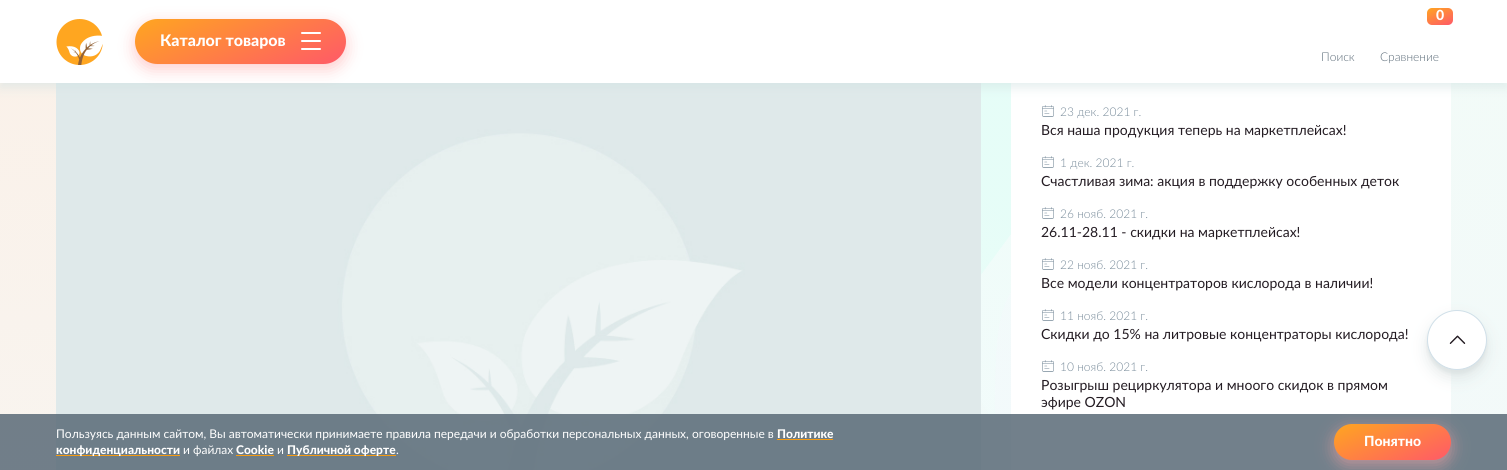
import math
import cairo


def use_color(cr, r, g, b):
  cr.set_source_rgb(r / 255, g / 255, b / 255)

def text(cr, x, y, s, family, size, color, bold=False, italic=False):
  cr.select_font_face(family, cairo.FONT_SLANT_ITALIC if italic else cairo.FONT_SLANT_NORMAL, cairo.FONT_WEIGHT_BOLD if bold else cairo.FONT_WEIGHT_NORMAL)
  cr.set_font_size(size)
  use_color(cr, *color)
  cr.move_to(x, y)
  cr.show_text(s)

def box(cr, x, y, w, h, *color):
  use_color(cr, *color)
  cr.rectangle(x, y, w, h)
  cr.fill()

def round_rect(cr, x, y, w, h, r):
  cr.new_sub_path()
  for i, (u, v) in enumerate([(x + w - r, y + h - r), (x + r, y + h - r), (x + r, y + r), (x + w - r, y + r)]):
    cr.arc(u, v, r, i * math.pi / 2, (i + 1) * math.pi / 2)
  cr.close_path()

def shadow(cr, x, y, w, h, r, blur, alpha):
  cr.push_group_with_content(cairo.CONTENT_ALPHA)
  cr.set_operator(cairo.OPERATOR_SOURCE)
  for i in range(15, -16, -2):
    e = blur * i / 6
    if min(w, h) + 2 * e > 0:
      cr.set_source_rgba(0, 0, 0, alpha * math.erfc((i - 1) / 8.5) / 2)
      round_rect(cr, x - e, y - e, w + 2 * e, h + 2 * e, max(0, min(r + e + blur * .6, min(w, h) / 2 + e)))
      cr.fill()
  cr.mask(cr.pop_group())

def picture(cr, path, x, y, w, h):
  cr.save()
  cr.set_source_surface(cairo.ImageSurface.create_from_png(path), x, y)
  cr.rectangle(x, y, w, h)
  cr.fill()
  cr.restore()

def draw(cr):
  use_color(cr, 240, 246, 246)
  cr.paint()
  picture(cr, "img_01.png", 0, 83, 1507, 387)
  picture(cr, "img_03.png", 56, 83, 925, 387)
  box(cr, 1011, 83, 440, 387, 255, 255, 255)
  use_color(cr, 210, 226, 226)
  shadow(cr, 0, -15, 1507, 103, 0, 5, 0.56)
  box(cr, 0, 0, 1507, 83, 255, 255, 255)
  picture(cr, "img_02.png", 56, 19, 47, 46)
  use_color(cr, 255, 163, 163)
  shadow(cr, 135, 24, 211, 45, 22.5, 8, 0.56)
  gradient = cairo.LinearGradient(214, -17, 267, 100)
  gradient.add_color_stop_rgba(0, 1, 0.651, 0.125, 1)
  gradient.add_color_stop_rgba(1, 1, 0.349, 0.408, 1)
  cr.set_source(gradient)
  round_rect(cr, 135, 19, 211, 45, 22.5)
  cr.fill()
  use_color(cr, 255, 255, 255)
  round_rect(cr, 301, 32, 20, 2, 1)
  cr.fill()
  round_rect(cr, 301, 40, 20, 2, 1)
  cr.fill()
  round_rect(cr, 301, 48, 20, 2, 1)
  cr.fill()
  gradient = cairo.LinearGradient(1435, 4.6, 1445, 28)
  gradient.add_color_stop_rgba(0, 1, 0.651, 0.125, 1)
  gradient.add_color_stop_rgba(1, 1, 0.349, 0.408, 1)
  cr.set_source(gradient)
  round_rect(cr, 1427, 8, 26, 17, 5)
  cr.fill()
  picture(cr, "img_04.png", 1042, 105, 12, 12)
  picture(cr, "img_04.png", 1042, 156, 12, 12)
  picture(cr, "img_04.png", 1042, 207, 12, 12)
  picture(cr, "img_04.png", 1042, 258, 12, 12)
  picture(cr, "img_04.png", 1042, 309, 12, 12)
  picture(cr, "img_04.png", 1042, 360, 12, 12)
  use_color(cr, 217, 224, 224)
  shadow(cr, 1427, 314, 60, 60, 30, 1.5, 0.63)
  shadow(cr, 1427, 318, 60, 60, 30, 7.5, 0.7)
  use_color(cr, 255, 255, 255)
  cr.arc(1457, 340, 29.5, 0, 2 * math.pi)
  cr.fill_preserve()
  use_color(cr, 208, 223, 232)
  cr.set_line_width(1)
  cr.stroke()
  picture(cr, "img_05.png", 1449, 335, 17, 9)
  cr.set_source_rgba(0.353, 0.416, 0.467, 0.85)
  cr.rectangle(0, 414, 1507, 56)
  cr.fill()
  box(cr, 777, 439, 56, 1, 246, 155, 17)
  box(cr, 56, 455, 124, 1, 246, 155, 17)
  box(cr, 236, 455, 38, 1, 246, 155, 17)
  box(cr, 287, 455, 109, 1, 246, 155, 17)
  use_color(cr, 255, 163, 163)
  shadow(cr, 1334, 429, 117, 36, 18, 8, 0.56)
  gradient = cairo.LinearGradient(1376, 405, 1409, 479)
  gradient.add_color_stop_rgba(0, 1, 0.651, 0.125, 1)
  gradient.add_color_stop_rgba(1, 1, 0.349, 0.408, 1)
  cr.set_source(gradient)
  round_rect(cr, 1334, 424, 117, 36, 18)
  cr.fill()
  text(cr, 160, 46, "Каталог товаров", "Lato Black", 16, (255, 255, 255))
  text(cr, 1321, 61, "Поиск", "Lato Light", 12, (90, 106, 119))
  text(cr, 1436, 20, "0", "Lato Black", 14, (255, 255, 255))
  text(cr, 1380, 61, "Сравнение", "Lato Light", 12, (90, 106, 119))
  text(cr, 1060, 116, "23 дек. 2021 г.", "Lato Light", 12, (119, 138, 153))
  text(cr, 1041, 135, "Вся наша продукция теперь на маркетплейсах!", "Lato", 14, (36, 28, 35))
  text(cr, 1060, 167, "1 дек. 2021 г.", "Lato Light", 12, (119, 138, 153))
  text(cr, 1041, 186, "Счастливая зима: акция в поддержку особенных деток", "Lato", 14, (36, 28, 35))
  text(cr, 1060, 218, "26 нояб. 2021 г.", "Lato Light", 12, (119, 138, 153))
  text(cr, 1041, 237, "26.11-28.11 - скидки на маркетплейсах!", "Lato", 14, (36, 28, 35))
  text(cr, 1060, 269, "22 нояб. 2021 г.", "Lato Light", 12, (119, 138, 153))
  text(cr, 1041, 288, "Все модели концентраторов кислорода в наличии!", "Lato", 14, (36, 28, 35))
  text(cr, 1060, 320, "11 нояб. 2021 г.", "Lato Light", 12, (119, 138, 153))
  text(cr, 1041, 339, "Скидки до 15% на литровые концентраторы кислорода!", "Lato", 14, (36, 28, 35))
  text(cr, 1060, 371, "10 нояб. 2021 г.", "Lato Light", 12, (119, 138, 153))
  text(cr, 1041, 390, "Розыгрыш рециркулятора и мноого скидок в прямом", "Lato", 14, (36, 28, 35))
  text(cr, 1041, 407, "эфире OZON", "Lato", 14, (36, 28, 35))
  text(cr, 56, 438, "Пользуясь данным сайтом, Вы автоматически принимаете правила передачи и обработки персональных данных, оговоренные в", "Lato", 12, (255, 255, 255))
  text(cr, 777, 438, "Политике", "Lato Black", 12, (255, 255, 255))
  text(cr, 56, 454, "конфиденциальности", "Lato Black", 12, (255, 255, 255))
  text(cr, 183, 454, "и файлах", "Lato", 12, (255, 255, 255))
  text(cr, 236, 454, "Cookie", "Lato Black", 12, (255, 255, 255))
  text(cr, 277, 454, "и", "Lato", 12, (255, 255, 255))
  text(cr, 287, 454, "Публичной оферте", "Lato Black", 12, (255, 255, 255))
  text(cr, 396, 454, ".", "Lato", 12, (255, 255, 255))
  text(cr, 1364, 446, "Понятно", "Lato Black", 14, (255, 255, 255))


surface = cairo.ImageSurface(cairo.FORMAT_RGB24, 1507, 470)
cr = cairo.Context(surface)
options = cairo.FontOptions()
options.set_hint_metrics(cairo.HINT_METRICS_OFF)
options.set_hint_style(cairo.HINT_STYLE_NONE)
cr.set_font_options(options)
cr.set_miter_limit(4)
draw(cr)
surface.write_to_png("out.png")
